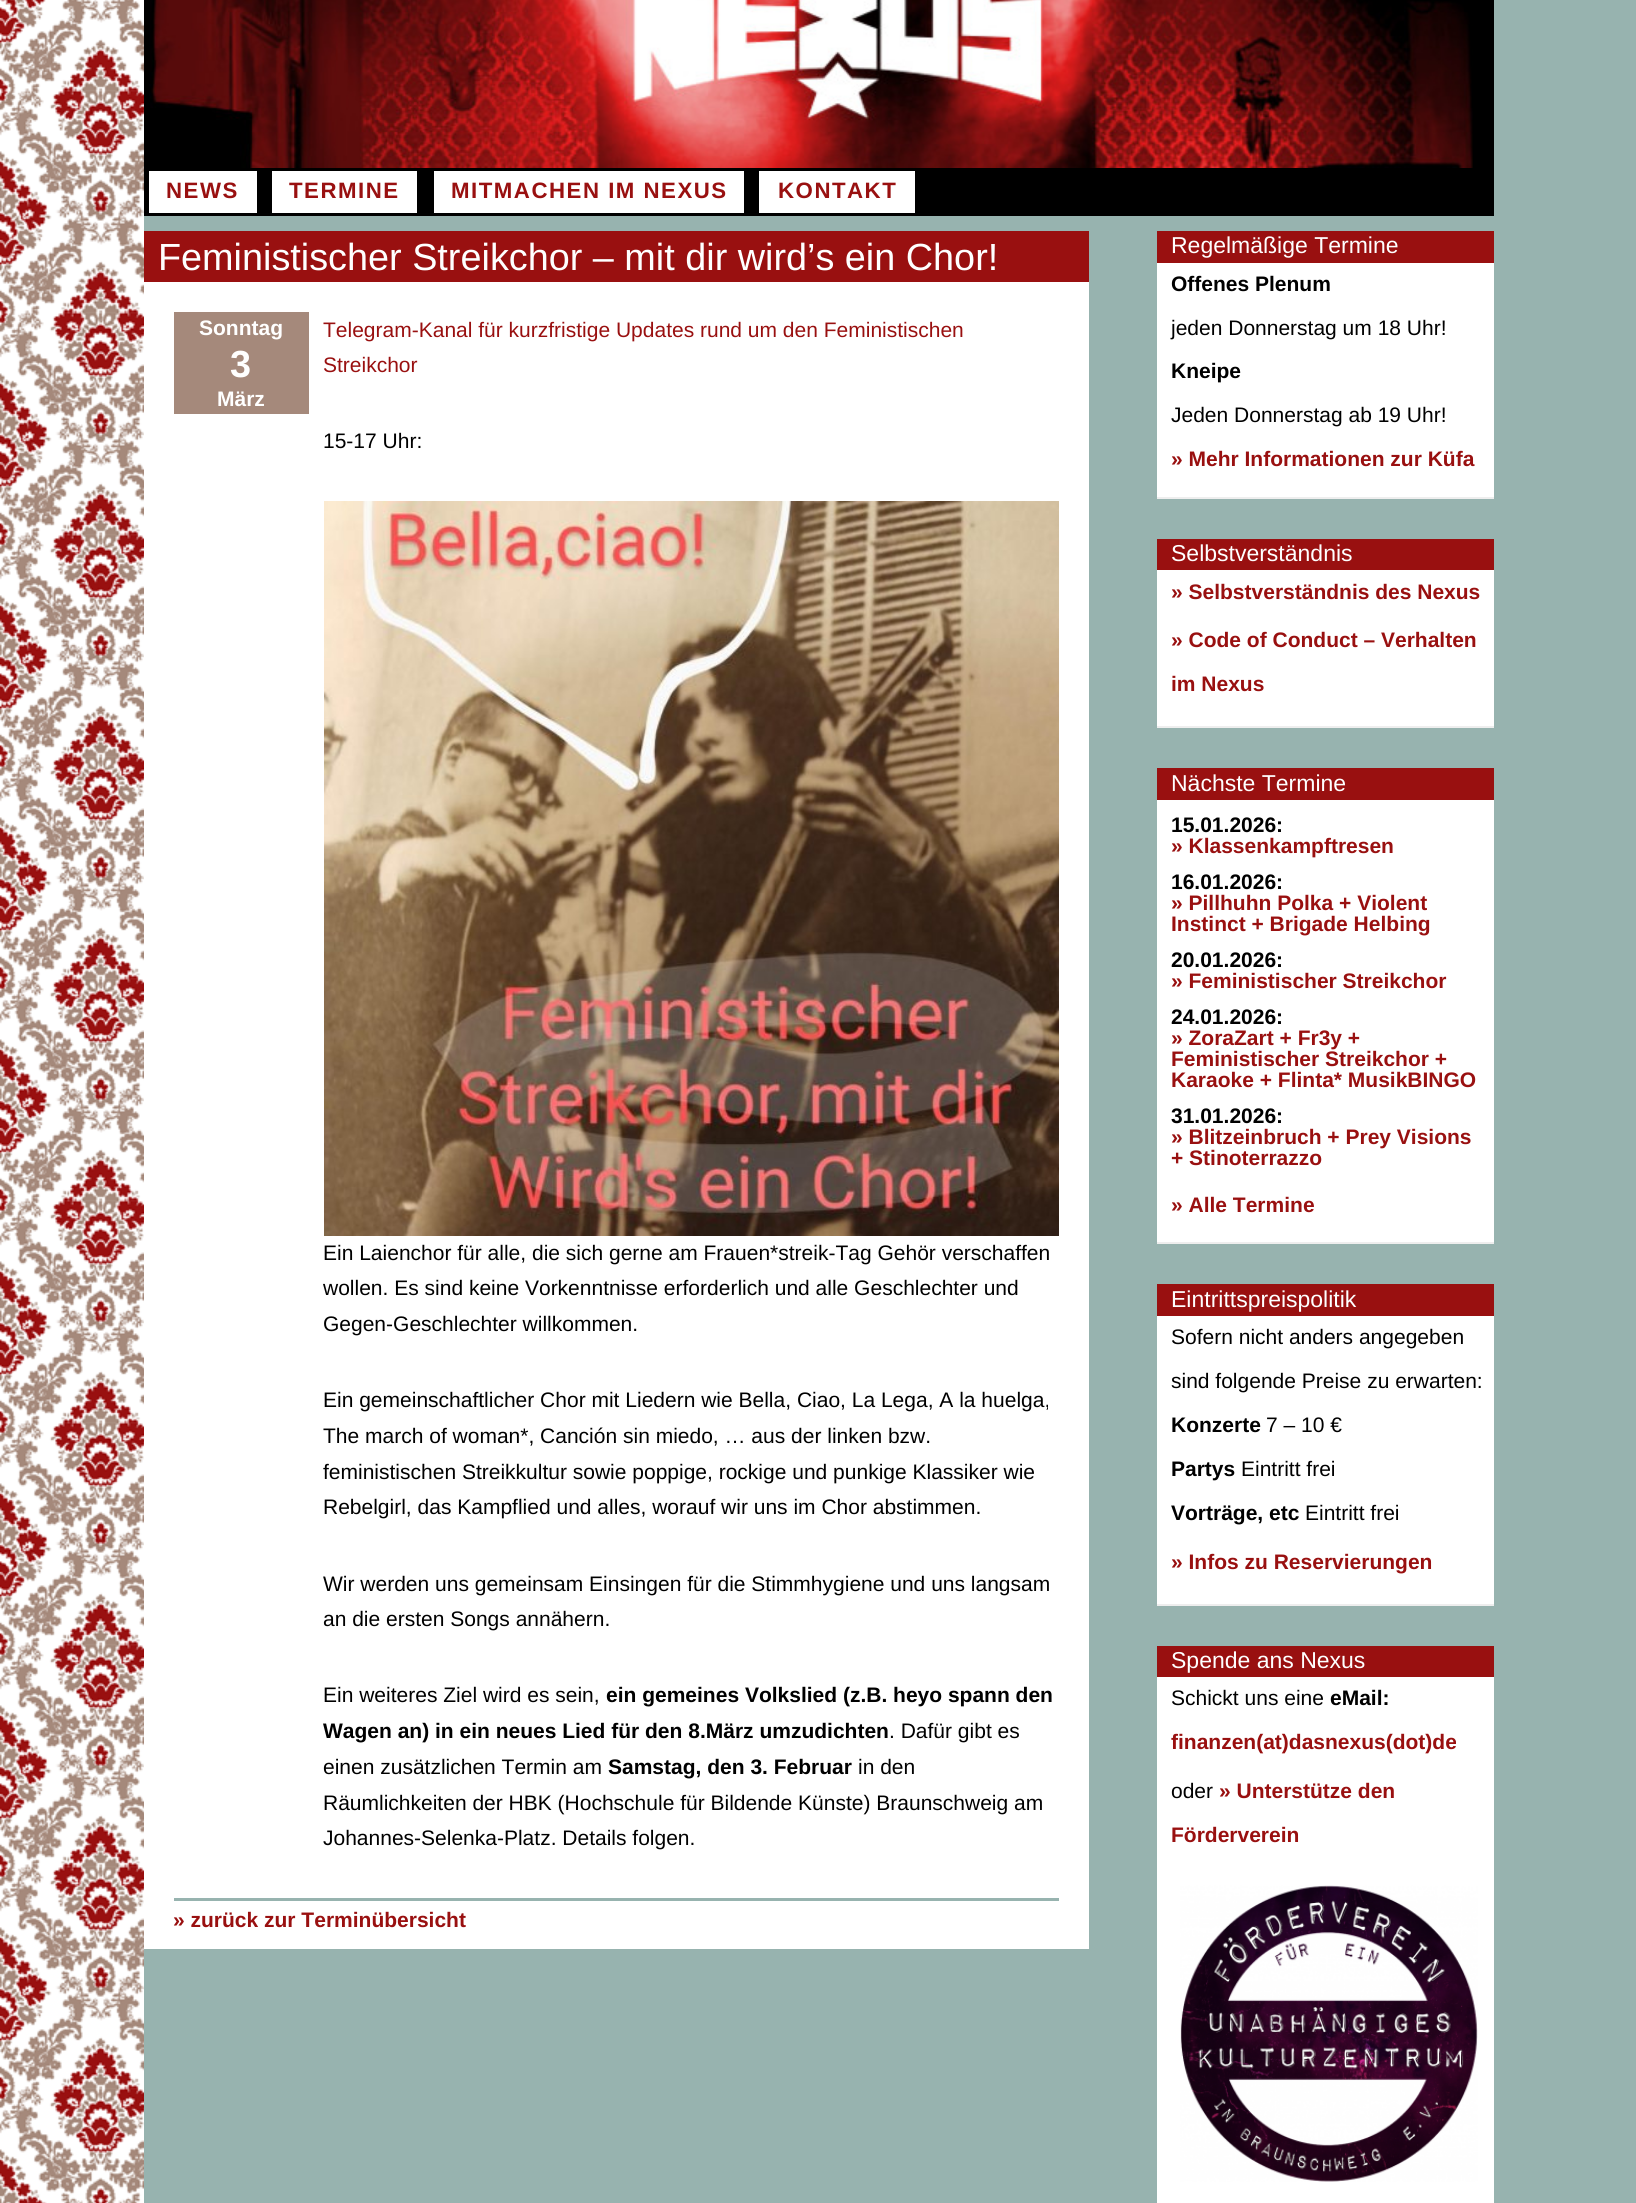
import math
import cairo


def use_color(cr, r, g, b):
  cr.set_source_rgb(r / 255, g / 255, b / 255)

def text(cr, x, y, s, family, size, color, bold=False, italic=False):
  cr.select_font_face(family, cairo.FONT_SLANT_ITALIC if italic else cairo.FONT_SLANT_NORMAL, cairo.FONT_WEIGHT_BOLD if bold else cairo.FONT_WEIGHT_NORMAL)
  cr.set_font_size(size)
  use_color(cr, *color)
  cr.move_to(x, y)
  cr.show_text(s)

def spaced_text(cr, x, y, s, letter, word):
  cr.move_to(x, y)
  for ch in s:
    cr.show_text(ch)
    cr.rel_move_to(letter + word * (ch == ' '), 0)

def box(cr, x, y, w, h, *color):
  use_color(cr, *color)
  cr.rectangle(x, y, w, h)
  cr.fill()

def picture(cr, path, x, y, w, h):
  cr.save()
  cr.set_source_surface(cairo.ImageSurface.create_from_png(path), x, y)
  cr.rectangle(x, y, w, h)
  cr.fill()
  cr.restore()

def draw(cr):
  use_color(cr, 151, 179, 175)
  cr.paint()
  picture(cr, "img_01.png", 0, 0, 144, 2203)
  box(cr, 144, 0, 1350, 216, 0, 0, 0)
  picture(cr, "img_02.png", 149, 0, 1324, 168)
  box(cr, 149, 171, 108, 42, 255, 255, 255)
  box(cr, 272, 171, 145, 42, 255, 255, 255)
  box(cr, 434, 171, 310, 42, 255, 255, 255)
  box(cr, 759, 171, 156, 42, 255, 255, 255)
  box(cr, 144, 282, 945, 1667, 255, 255, 255)
  box(cr, 144, 231, 945, 51, 153, 16, 16)
  box(cr, 174, 312, 135, 102, 165, 137, 123)
  picture(cr, "img_03.png", 324, 501, 735, 735)
  box(cr, 174, 1898, 885, 3, 151, 179, 175)
  box(cr, 1157, 263, 337, 234, 255, 255, 255)
  box(cr, 1157, 497, 337, 2, 238, 238, 238)
  box(cr, 1157, 231, 337, 32, 153, 16, 16)
  box(cr, 1157, 570, 337, 156, 255, 255, 255)
  box(cr, 1157, 726, 337, 2, 238, 238, 238)
  box(cr, 1157, 539, 337, 31, 153, 16, 16)
  box(cr, 1157, 800, 337, 442, 255, 255, 255)
  box(cr, 1157, 1242, 337, 2, 238, 238, 238)
  box(cr, 1157, 768, 337, 32, 153, 16, 16)
  box(cr, 1157, 1316, 337, 288, 255, 255, 255)
  box(cr, 1157, 1604, 337, 2, 238, 238, 238)
  box(cr, 1157, 1284, 337, 32, 153, 16, 16)
  box(cr, 1157, 1677, 337, 526, 255, 255, 255)
  box(cr, 1157, 1646, 337, 31, 153, 16, 16)
  picture(cr, "img_04.png", 1180, 1885, 298, 297)
  cr.select_font_face("Liberation Sans", cairo.FONT_SLANT_NORMAL, cairo.FONT_WEIGHT_BOLD)
  cr.set_font_size(22.25)
  spaced_text(cr, 166, 198, "NEWS", 1.5, 0)
  spaced_text(cr, 289, 198, "TERMINE", 1.5, 0)
  spaced_text(cr, 451, 198, "MITMACHEN IM NEXUS", 1.5, 0)
  spaced_text(cr, 778, 198, "KONTAKT", 1.5, 0)
  text(cr, 158, 270, "Feministischer Streikchor – mit dir wird’s ein Chor!", "Liberation Sans", 37.8, (255, 255, 255))
  text(cr, 199, 335, "Sonntag", "Liberation Sans", 21, (255, 255, 255), bold=True)
  text(cr, 230, 377, "3", "Liberation Sans", 37.8, (255, 255, 255), bold=True)
  text(cr, 217, 406, "März", "Liberation Sans", 21, (255, 255, 255), bold=True)
  text(cr, 323, 337, "Telegram-Kanal für kurzfristige Updates rund um den Feministischen", "Liberation Sans", 21, (153, 16, 16))
  text(cr, 323, 372, "Streikchor", "Liberation Sans", 21, (153, 16, 16))
  text(cr, 323, 448, "15-17 Uhr:", "Liberation Sans", 21, (0, 0, 0))
  text(cr, 323, 1260, "Ein Laienchor für alle, die sich gerne am Frauen*streik-Tag Gehör verschaffen", "Liberation Sans", 21, (0, 0, 0))
  text(cr, 323, 1295, "wollen. Es sind keine Vorkenntnisse erforderlich und alle Geschlechter und", "Liberation Sans", 21, (0, 0, 0))
  text(cr, 323, 1331, "Gegen-Geschlechter willkommen.", "Liberation Sans", 21, (0, 0, 0))
  text(cr, 323, 1407, "Ein gemeinschaftlicher Chor mit Liedern wie Bella, Ciao, La Lega, A la huelga,", "Liberation Sans", 21, (0, 0, 0))
  text(cr, 323, 1443, "The march of woman*, Canción sin miedo, … aus der linken bzw.", "Liberation Sans", 21, (0, 0, 0))
  text(cr, 323, 1479, "feministischen Streikkultur sowie poppige, rockige und punkige Klassiker wie", "Liberation Sans", 21, (0, 0, 0))
  text(cr, 323, 1514, "Rebelgirl, das Kampflied und alles, worauf wir uns im Chor abstimmen.", "Liberation Sans", 21, (0, 0, 0))
  text(cr, 323, 1591, "Wir werden uns gemeinsam Einsingen für die Stimmhygiene und uns langsam", "Liberation Sans", 21, (0, 0, 0))
  text(cr, 323, 1626, "an die ersten Songs annähern.", "Liberation Sans", 21, (0, 0, 0))
  text(cr, 323, 1702, "Ein weiteres Ziel wird es sein,", "Liberation Sans", 21, (0, 0, 0))
  text(cr, 606, 1702, "ein gemeines Volkslied (z.B. heyo spann den", "Liberation Sans", 21, (0, 0, 0), bold=True)
  text(cr, 323, 1738, "Wagen an) in ein neues Lied für den 8.März umzudichten", "Liberation Sans", 21, (0, 0, 0), bold=True)
  text(cr, 889, 1738, ". Dafür gibt es", "Liberation Sans", 21, (0, 0, 0))
  text(cr, 323, 1774, "einen zusätzlichen Termin am", "Liberation Sans", 21, (0, 0, 0))
  text(cr, 608, 1774, "Samstag, den 3. Februar", "Liberation Sans", 21, (0, 0, 0), bold=True)
  text(cr, 858, 1774, "in den", "Liberation Sans", 21, (0, 0, 0))
  text(cr, 323, 1810, "Räumlichkeiten der HBK (Hochschule für Bildende Künste) Braunschweig am", "Liberation Sans", 21, (0, 0, 0))
  text(cr, 323, 1845, "Johannes-Selenka-Platz. Details folgen.", "Liberation Sans", 21, (0, 0, 0))
  text(cr, 173, 1927, "» zurück zur Terminübersicht", "Liberation Sans", 21, (153, 16, 16), bold=True)
  text(cr, 1171, 253, "Regelmäßige Termine", "Liberation Sans", 23, (255, 255, 255))
  text(cr, 1171, 291, "Offenes Plenum", "Liberation Sans", 21, (0, 0, 0), bold=True)
  text(cr, 1171, 335, "jeden Donnerstag um 18 Uhr!", "Liberation Sans", 21, (0, 0, 0))
  text(cr, 1171, 378, "Kneipe", "Liberation Sans", 21, (0, 0, 0), bold=True)
  text(cr, 1171, 422, "Jeden Donnerstag ab 19 Uhr!", "Liberation Sans", 21, (0, 0, 0))
  text(cr, 1171, 466, "» Mehr Informationen zur Küfa", "Liberation Sans", 21, (153, 16, 16), bold=True)
  text(cr, 1171, 561, "Selbstverständnis", "Liberation Sans", 23, (255, 255, 255))
  text(cr, 1171, 599, "» Selbstverständnis des Nexus", "Liberation Sans", 21, (153, 16, 16), bold=True)
  text(cr, 1171, 647, "» Code of Conduct – Verhalten", "Liberation Sans", 21, (153, 16, 16), bold=True)
  text(cr, 1171, 691, "im Nexus", "Liberation Sans", 21, (153, 16, 16), bold=True)
  text(cr, 1171, 791, "Nächste Termine", "Liberation Sans", 23, (255, 255, 255))
  text(cr, 1171, 832, "15.01.2026:", "Liberation Sans", 21, (0, 0, 0), bold=True)
  text(cr, 1171, 853, "» Klassenkampftresen", "Liberation Sans", 21, (153, 16, 16), bold=True)
  text(cr, 1171, 889, "16.01.2026:", "Liberation Sans", 21, (0, 0, 0), bold=True)
  text(cr, 1171, 910, "» Pillhuhn Polka + Violent", "Liberation Sans", 21, (153, 16, 16), bold=True)
  text(cr, 1171, 931, "Instinct + Brigade Helbing", "Liberation Sans", 21, (153, 16, 16), bold=True)
  text(cr, 1171, 967, "20.01.2026:", "Liberation Sans", 21, (0, 0, 0), bold=True)
  text(cr, 1171, 988, "» Feministischer Streikchor", "Liberation Sans", 21, (153, 16, 16), bold=True)
  text(cr, 1171, 1024, "24.01.2026:", "Liberation Sans", 21, (0, 0, 0), bold=True)
  text(cr, 1171, 1045, "» ZoraZart + Fr3y +", "Liberation Sans", 21, (153, 16, 16), bold=True)
  text(cr, 1171, 1066, "Feministischer Streikchor +", "Liberation Sans", 21, (153, 16, 16), bold=True)
  text(cr, 1171, 1087, "Karaoke + Flinta* MusikBINGO", "Liberation Sans", 21, (153, 16, 16), bold=True)
  text(cr, 1171, 1123, "31.01.2026:", "Liberation Sans", 21, (0, 0, 0), bold=True)
  text(cr, 1171, 1144, "» Blitzeinbruch + Prey Visions", "Liberation Sans", 21, (153, 16, 16), bold=True)
  text(cr, 1171, 1165, "+ Stinoterrazzo", "Liberation Sans", 21, (153, 16, 16), bold=True)
  text(cr, 1171, 1212, "» Alle Termine", "Liberation Sans", 21, (153, 16, 16), bold=True)
  text(cr, 1171, 1307, "Eintrittspreispolitik", "Liberation Sans", 23, (255, 255, 255))
  text(cr, 1171, 1344, "Sofern nicht anders angegeben", "Liberation Sans", 21, (0, 0, 0))
  text(cr, 1171, 1388, "sind folgende Preise zu erwarten:", "Liberation Sans", 21, (0, 0, 0))
  text(cr, 1171, 1432, "Konzerte", "Liberation Sans", 21, (0, 0, 0), bold=True)
  text(cr, 1266, 1432, "7 – 10 €", "Liberation Sans", 21, (0, 0, 0))
  text(cr, 1171, 1476, "Partys", "Liberation Sans", 21, (0, 0, 0), bold=True)
  text(cr, 1241, 1476, "Eintritt frei", "Liberation Sans", 21, (0, 0, 0))
  text(cr, 1171, 1520, "Vorträge, etc", "Liberation Sans", 21, (0, 0, 0), bold=True)
  text(cr, 1305, 1520, "Eintritt frei", "Liberation Sans", 21, (0, 0, 0))
  text(cr, 1171, 1569, "» Infos zu Reservierungen", "Liberation Sans", 21, (153, 16, 16), bold=True)
  text(cr, 1171, 1668, "Spende ans Nexus", "Liberation Sans", 23, (255, 255, 255))
  text(cr, 1171, 1705, "Schickt uns eine", "Liberation Sans", 21, (0, 0, 0))
  text(cr, 1330, 1705, "eMail:", "Liberation Sans", 21, (0, 0, 0), bold=True)
  text(cr, 1171, 1749, "finanzen(at)dasnexus(dot)de", "Liberation Sans", 21, (153, 16, 16), bold=True)
  text(cr, 1171, 1798, "oder", "Liberation Sans", 21, (0, 0, 0))
  text(cr, 1219, 1798, "» Unterstütze den", "Liberation Sans", 21, (153, 16, 16), bold=True)
  text(cr, 1171, 1842, "Förderverein", "Liberation Sans", 21, (153, 16, 16), bold=True)


surface = cairo.ImageSurface(cairo.FORMAT_RGB24, 1636, 2203)
cr = cairo.Context(surface)
options = cairo.FontOptions()
options.set_hint_metrics(cairo.HINT_METRICS_OFF)
options.set_hint_style(cairo.HINT_STYLE_NONE)
cr.set_font_options(options)
cr.set_miter_limit(4)
draw(cr)
surface.write_to_png("out.png")
